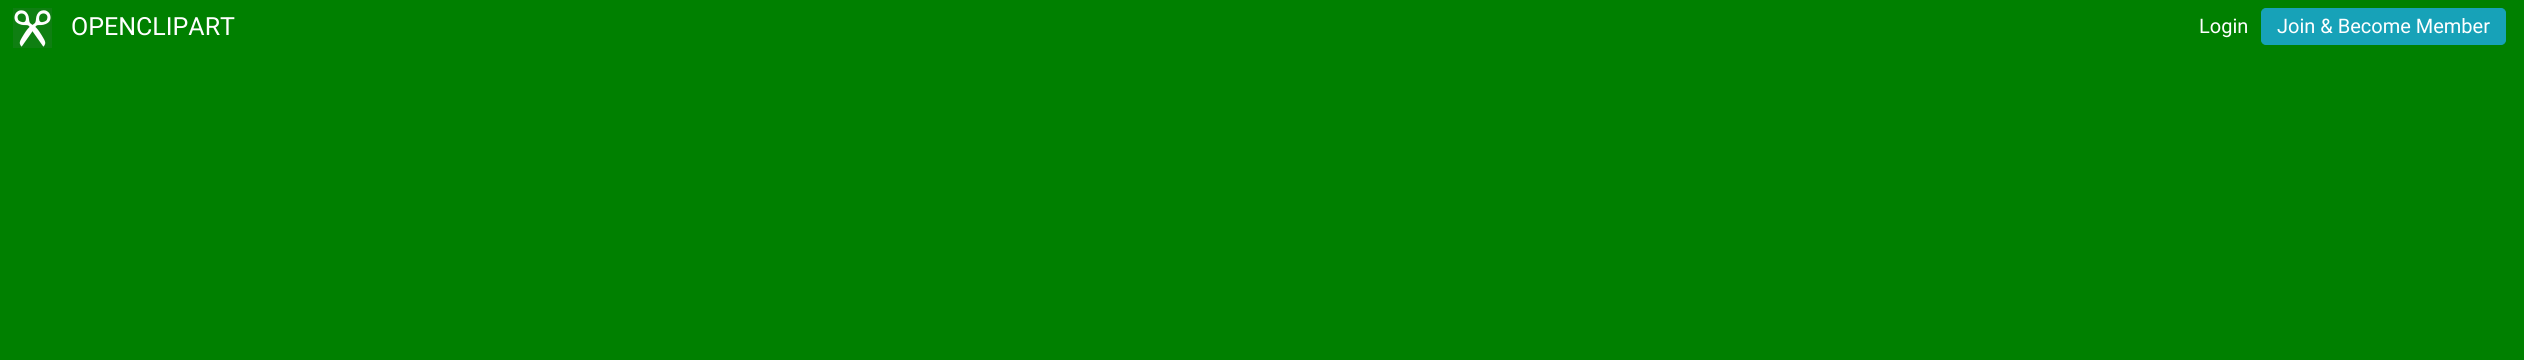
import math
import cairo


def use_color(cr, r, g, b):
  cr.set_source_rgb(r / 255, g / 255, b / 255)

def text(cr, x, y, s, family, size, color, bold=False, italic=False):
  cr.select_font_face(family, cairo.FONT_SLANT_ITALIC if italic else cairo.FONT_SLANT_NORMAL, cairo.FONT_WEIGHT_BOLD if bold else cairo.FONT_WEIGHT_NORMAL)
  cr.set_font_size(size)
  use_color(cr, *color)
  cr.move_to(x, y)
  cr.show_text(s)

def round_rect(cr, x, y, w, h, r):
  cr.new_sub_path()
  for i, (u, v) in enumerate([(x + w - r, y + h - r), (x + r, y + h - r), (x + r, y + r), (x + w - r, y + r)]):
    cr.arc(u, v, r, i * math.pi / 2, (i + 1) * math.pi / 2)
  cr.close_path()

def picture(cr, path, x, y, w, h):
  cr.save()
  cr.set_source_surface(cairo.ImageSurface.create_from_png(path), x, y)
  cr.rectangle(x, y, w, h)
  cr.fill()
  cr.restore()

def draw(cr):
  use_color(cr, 0, 128, 0)
  cr.paint()
  picture(cr, "img_01.png", 13, 8, 39, 40)
  use_color(cr, 23, 162, 184)
  round_rect(cr, 2261.5, 8.5, 244, 36, 4.5)
  cr.fill_preserve()
  cr.set_line_width(1)
  cr.stroke()
  text(cr, 71, 35, "OPENCLIPART", "Roboto", 25, (255, 255, 255))
  text(cr, 2199, 33, "Login", "Roboto", 20, (255, 255, 255))
  text(cr, 2277, 33, "Join & Become Member", "Roboto", 20, (255, 255, 255))


surface = cairo.ImageSurface(cairo.FORMAT_RGB24, 2524, 360)
cr = cairo.Context(surface)
options = cairo.FontOptions()
options.set_hint_metrics(cairo.HINT_METRICS_OFF)
options.set_hint_style(cairo.HINT_STYLE_NONE)
cr.set_font_options(options)
cr.set_miter_limit(4)
draw(cr)
surface.write_to_png("out.png")
